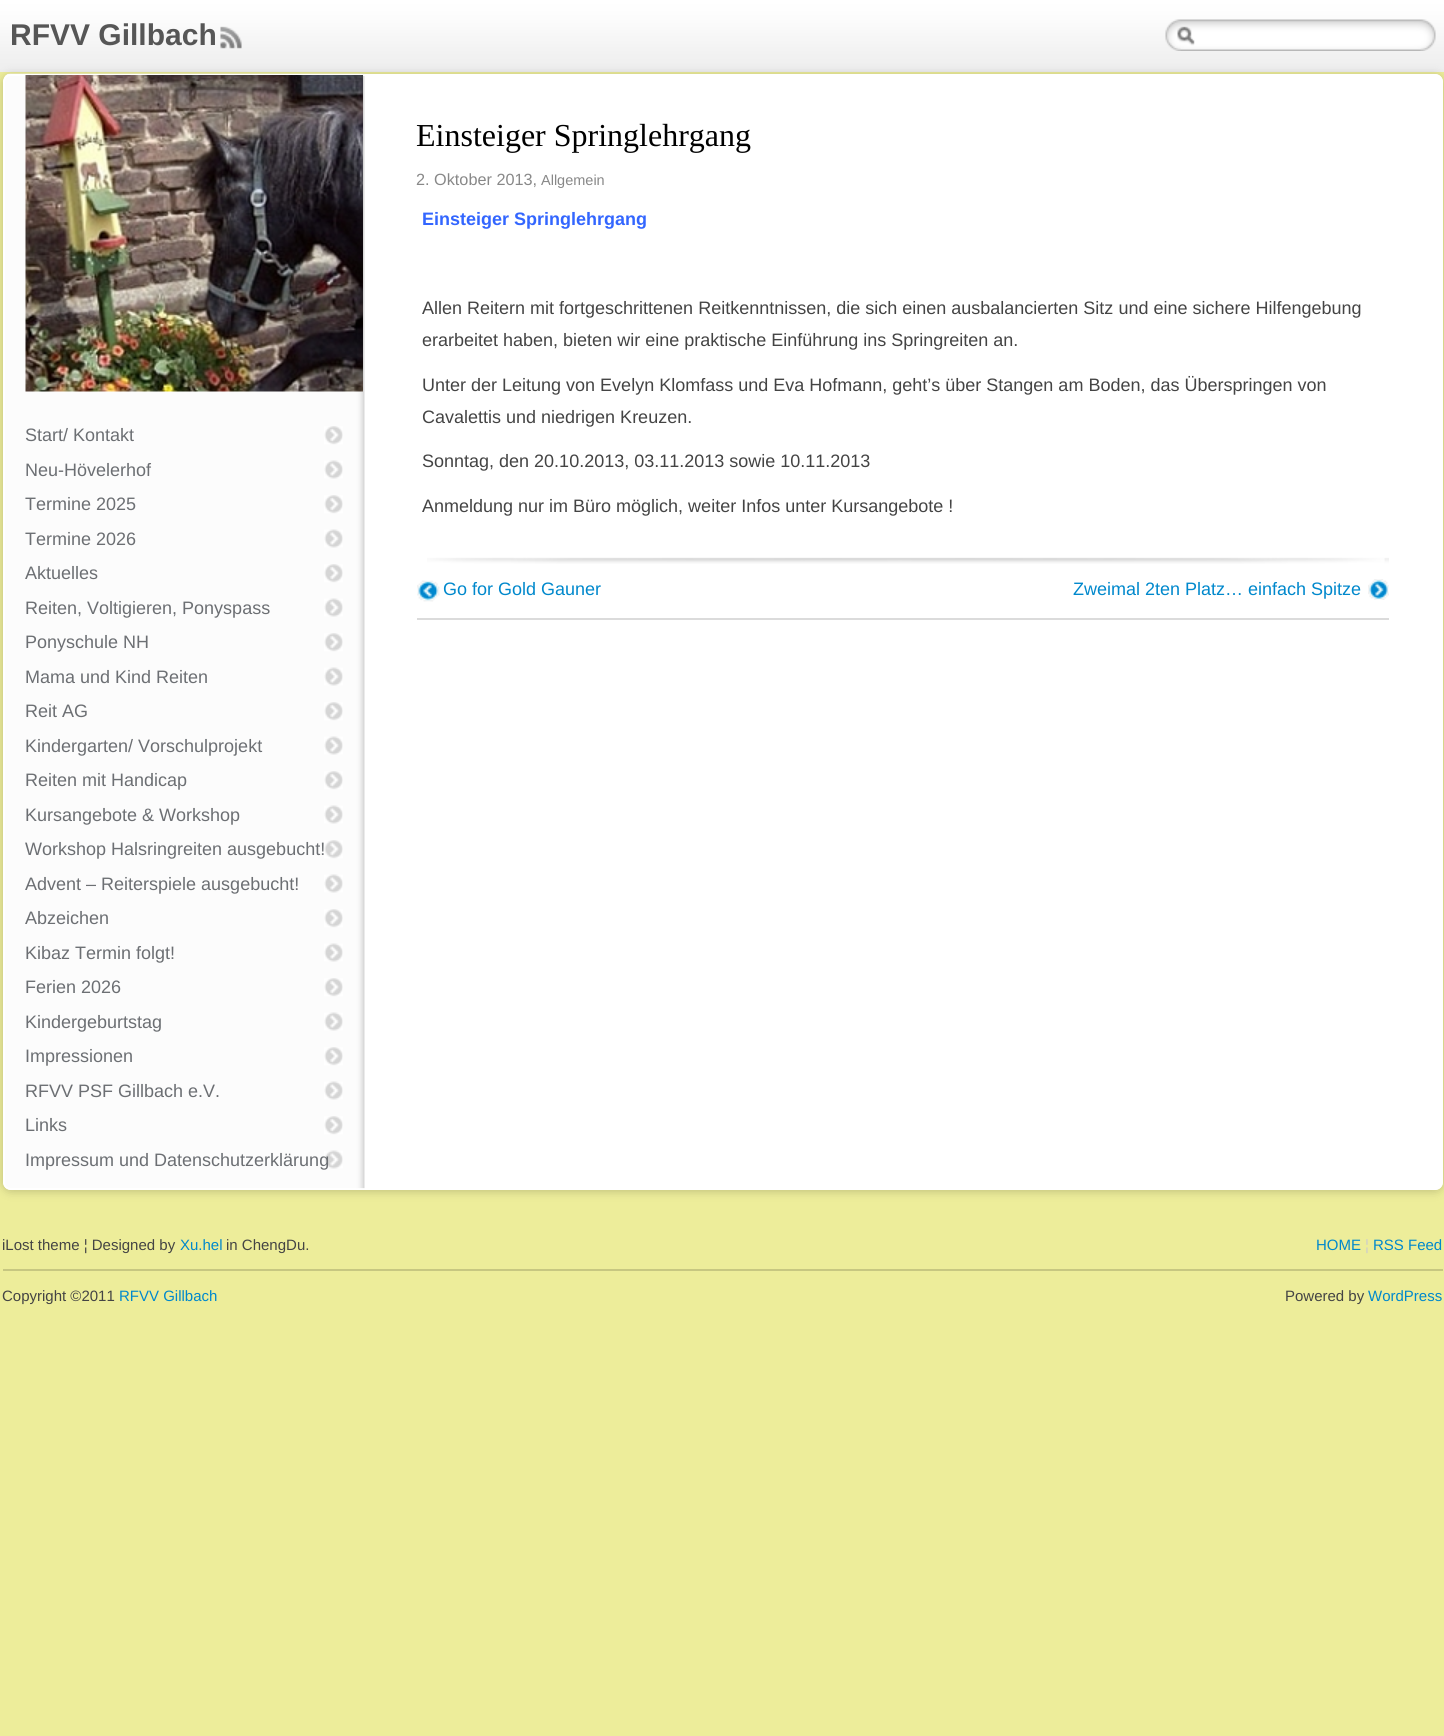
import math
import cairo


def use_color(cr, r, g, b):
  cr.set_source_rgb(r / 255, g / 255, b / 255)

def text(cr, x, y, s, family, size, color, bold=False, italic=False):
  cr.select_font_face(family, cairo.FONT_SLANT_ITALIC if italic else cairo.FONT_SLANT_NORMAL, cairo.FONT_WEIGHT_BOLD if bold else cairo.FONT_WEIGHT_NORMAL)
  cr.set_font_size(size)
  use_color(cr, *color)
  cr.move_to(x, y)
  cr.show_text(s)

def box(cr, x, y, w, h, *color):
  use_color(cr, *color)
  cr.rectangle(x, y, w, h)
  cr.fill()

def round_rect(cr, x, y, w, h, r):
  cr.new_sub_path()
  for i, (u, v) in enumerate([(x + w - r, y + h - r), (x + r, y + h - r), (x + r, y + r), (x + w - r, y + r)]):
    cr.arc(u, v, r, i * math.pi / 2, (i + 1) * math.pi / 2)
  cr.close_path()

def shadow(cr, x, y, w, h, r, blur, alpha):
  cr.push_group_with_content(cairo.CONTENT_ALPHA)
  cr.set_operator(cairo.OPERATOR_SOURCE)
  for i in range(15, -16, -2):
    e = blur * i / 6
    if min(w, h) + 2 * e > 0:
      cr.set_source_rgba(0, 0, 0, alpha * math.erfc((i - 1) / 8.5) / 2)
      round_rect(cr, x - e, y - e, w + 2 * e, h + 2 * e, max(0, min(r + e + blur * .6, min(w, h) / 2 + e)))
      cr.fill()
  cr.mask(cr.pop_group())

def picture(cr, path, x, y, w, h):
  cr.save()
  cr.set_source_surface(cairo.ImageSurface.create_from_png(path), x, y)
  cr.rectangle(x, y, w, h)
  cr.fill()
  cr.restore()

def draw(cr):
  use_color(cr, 237, 237, 154)
  cr.paint()
  picture(cr, "img_01.png", 0, 0, 1444, 72)
  picture(cr, "img_02.png", 220, 26, 22, 23)
  picture(cr, "img_03.png", 1165, 19, 271, 32)
  use_color(cr, 0, 0, 0)
  shadow(cr, 3, 75, 1440, 1116, 8, 5, 0.21)
  use_color(cr, 255, 255, 255)
  round_rect(cr, 3, 74, 1440, 1116, 8)
  cr.fill()
  picture(cr, "img_04.png", 4, 73, 361, 1117)
  round_rect(cr, 4, 75, 1438, 1114, 7)
  cr.set_source_rgba(1, 1, 1, 0.86)
  cr.stroke()
  picture(cr, "img_05.png", 427, 557, 962, 7)
  box(cr, 417, 618, 972, 2, 219, 219, 219)
  picture(cr, "img_06.png", 417, 580, 23, 22)
  picture(cr, "img_07.png", 1368, 579, 21, 21)
  picture(cr, "img_08.png", 25, 75, 338, 317)
  picture(cr, "img_09.png", 324, 426, 19, 19)
  picture(cr, "img_10.png", 324, 460, 19, 19)
  picture(cr, "img_09.png", 324, 495, 19, 19)
  picture(cr, "img_10.png", 324, 529, 19, 19)
  picture(cr, "img_09.png", 324, 564, 19, 19)
  picture(cr, "img_10.png", 324, 598, 19, 19)
  picture(cr, "img_09.png", 324, 633, 19, 19)
  picture(cr, "img_10.png", 324, 667, 19, 19)
  picture(cr, "img_09.png", 324, 702, 19, 19)
  picture(cr, "img_10.png", 324, 736, 19, 19)
  picture(cr, "img_09.png", 324, 771, 19, 19)
  picture(cr, "img_10.png", 324, 805, 19, 19)
  picture(cr, "img_09.png", 324, 840, 19, 19)
  picture(cr, "img_10.png", 324, 874, 19, 19)
  picture(cr, "img_09.png", 324, 909, 19, 19)
  picture(cr, "img_10.png", 324, 943, 19, 19)
  picture(cr, "img_09.png", 324, 978, 19, 19)
  picture(cr, "img_10.png", 324, 1012, 19, 19)
  picture(cr, "img_09.png", 324, 1047, 19, 19)
  picture(cr, "img_10.png", 324, 1081, 19, 19)
  picture(cr, "img_09.png", 324, 1116, 19, 19)
  picture(cr, "img_10.png", 324, 1150, 19, 19)
  box(cr, 3, 1269, 1440, 2, 199, 199, 129)
  text(cr, 10, 45, "RFVV Gillbach", "Liberation Sans", 30, (86, 86, 86), bold=True)
  text(cr, 416, 146, "Einsteiger Springlehrgang", "Liberation Serif", 32, (0, 0, 0))
  text(cr, 416, 185, "2. Oktober 2013,", "Liberation Sans", 16.25, (136, 136, 136))
  text(cr, 541, 185, "Allgemein", "Liberation Sans", 14.5, (136, 136, 136))
  text(cr, 422, 225, "Einsteiger Springlehrgang", "Liberation Sans", 18, (51, 102, 255), bold=True)
  text(cr, 422, 314, "Allen Reitern mit fortgeschrittenen Reitkenntnissen, die sich einen ausbalancierten Sitz und eine sichere Hilfengebung", "Liberation Sans", 18, (68, 68, 68))
  text(cr, 422, 346, "erarbeitet haben, bieten wir eine praktische Einführung ins Springreiten an.", "Liberation Sans", 18, (68, 68, 68))
  text(cr, 422, 391, "Unter der Leitung von Evelyn Klomfass und Eva Hofmann, geht’s über Stangen am Boden, das Überspringen von", "Liberation Sans", 18, (68, 68, 68))
  text(cr, 422, 423, "Cavalettis und niedrigen Kreuzen.", "Liberation Sans", 18, (68, 68, 68))
  text(cr, 422, 467, "Sonntag, den 20.10.2013, 03.11.2013 sowie 10.11.2013", "Liberation Sans", 18, (68, 68, 68))
  text(cr, 422, 512, "Anmeldung nur im Büro möglich, weiter Infos unter Kursangebote !", "Liberation Sans", 18, (68, 68, 68))
  text(cr, 443, 595, "Go for Gold Gauner", "Liberation Sans", 18, (0, 136, 204))
  text(cr, 1073, 595, "Zweimal 2ten Platz… einfach Spitze", "Liberation Sans", 18, (0, 136, 204))
  text(cr, 25, 441, "Start/ Kontakt", "Liberation Sans", 18, (108, 111, 115))
  text(cr, 25, 476, "Neu-Hövelerhof", "Liberation Sans", 18, (108, 111, 115))
  text(cr, 25, 510, "Termine 2025", "Liberation Sans", 18, (108, 111, 115))
  text(cr, 25, 545, "Termine 2026", "Liberation Sans", 18, (108, 111, 115))
  text(cr, 25, 579, "Aktuelles", "Liberation Sans", 18, (108, 111, 115))
  text(cr, 25, 614, "Reiten, Voltigieren, Ponyspass", "Liberation Sans", 18, (108, 111, 115))
  text(cr, 25, 648, "Ponyschule NH", "Liberation Sans", 18, (108, 111, 115))
  text(cr, 25, 683, "Mama und Kind Reiten", "Liberation Sans", 18, (108, 111, 115))
  text(cr, 25, 717, "Reit AG", "Liberation Sans", 18, (108, 111, 115))
  text(cr, 25, 752, "Kindergarten/ Vorschulprojekt", "Liberation Sans", 18, (108, 111, 115))
  text(cr, 25, 786, "Reiten mit Handicap", "Liberation Sans", 18, (108, 111, 115))
  text(cr, 25, 821, "Kursangebote & Workshop", "Liberation Sans", 18, (108, 111, 115))
  text(cr, 25, 855, "Workshop Halsringreiten ausgebucht!", "Liberation Sans", 18, (108, 111, 115))
  text(cr, 25, 890, "Advent – Reiterspiele ausgebucht!", "Liberation Sans", 18, (108, 111, 115))
  text(cr, 25, 924, "Abzeichen", "Liberation Sans", 18, (108, 111, 115))
  text(cr, 25, 959, "Kibaz Termin folgt!", "Liberation Sans", 18, (108, 111, 115))
  text(cr, 25, 993, "Ferien 2026", "Liberation Sans", 18, (108, 111, 115))
  text(cr, 25, 1028, "Kindergeburtstag", "Liberation Sans", 18, (108, 111, 115))
  text(cr, 25, 1062, "Impressionen", "Liberation Sans", 18, (108, 111, 115))
  text(cr, 25, 1097, "RFVV PSF Gillbach e.V.", "Liberation Sans", 18, (108, 111, 115))
  text(cr, 25, 1131, "Links", "Liberation Sans", 18, (108, 111, 115))
  text(cr, 25, 1166, "Impressum und Datenschutzerklärung", "Liberation Sans", 18, (108, 111, 115))
  text(cr, 2, 1250, "iLost theme ¦ Designed by", "Liberation Sans", 15, (68, 68, 68))
  text(cr, 180, 1250, "Xu.hel", "Liberation Sans", 15, (0, 136, 204))
  text(cr, 226, 1250, "in ChengDu.", "Liberation Sans", 15, (68, 68, 68))
  text(cr, 1316, 1250, "HOME", "Liberation Sans", 15, (0, 136, 204))
  text(cr, 1365, 1250, "¦", "Liberation Sans", 15, (204, 204, 204))
  text(cr, 1373, 1250, "RSS Feed", "Liberation Sans", 15, (0, 136, 204))
  text(cr, 2, 1301, "Copyright ©2011", "Liberation Sans", 15, (68, 68, 68))
  text(cr, 119, 1301, "RFVV Gillbach", "Liberation Sans", 15, (0, 136, 204))
  text(cr, 1285, 1301, "Powered by", "Liberation Sans", 15, (68, 68, 68))
  text(cr, 1368, 1301, "WordPress", "Liberation Sans", 15, (0, 136, 204))


surface = cairo.ImageSurface(cairo.FORMAT_RGB24, 1444, 1736)
cr = cairo.Context(surface)
options = cairo.FontOptions()
options.set_hint_metrics(cairo.HINT_METRICS_OFF)
options.set_hint_style(cairo.HINT_STYLE_NONE)
cr.set_font_options(options)
cr.set_miter_limit(4)
draw(cr)
surface.write_to_png("out.png")
